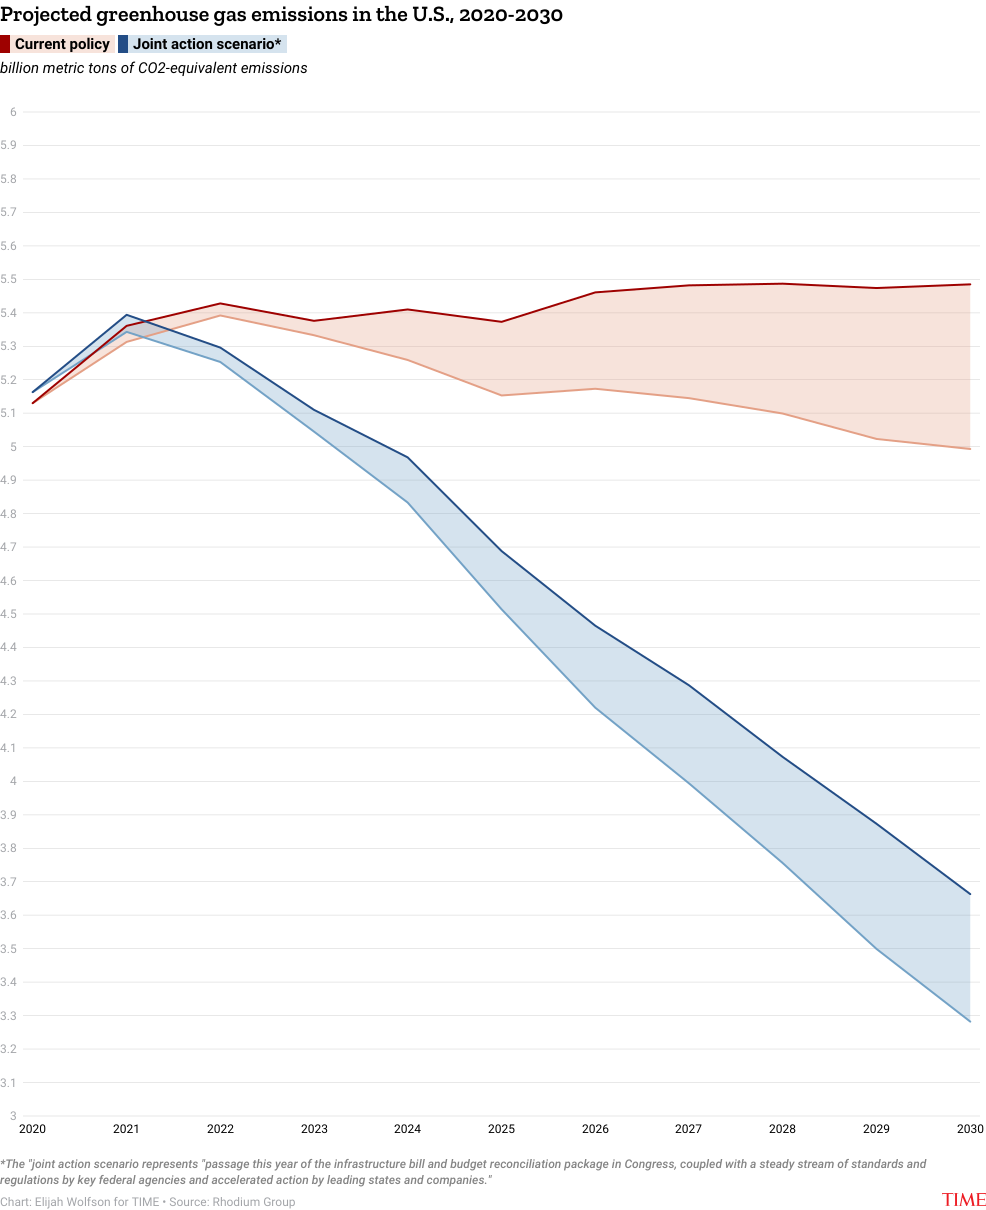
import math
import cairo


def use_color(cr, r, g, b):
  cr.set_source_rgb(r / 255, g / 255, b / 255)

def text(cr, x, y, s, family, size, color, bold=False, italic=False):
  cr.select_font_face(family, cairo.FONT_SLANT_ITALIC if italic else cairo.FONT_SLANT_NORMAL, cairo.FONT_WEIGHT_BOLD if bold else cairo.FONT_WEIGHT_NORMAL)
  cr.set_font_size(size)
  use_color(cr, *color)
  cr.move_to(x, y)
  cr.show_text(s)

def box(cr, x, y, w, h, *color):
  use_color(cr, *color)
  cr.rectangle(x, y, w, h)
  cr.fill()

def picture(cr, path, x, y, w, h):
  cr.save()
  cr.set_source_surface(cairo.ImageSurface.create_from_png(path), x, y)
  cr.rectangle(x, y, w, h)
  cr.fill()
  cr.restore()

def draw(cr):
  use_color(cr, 255, 255, 255)
  cr.paint()
  box(cr, 10, 35, 105, 18, 247, 227, 219)
  box(cr, 0, 35, 10, 18, 158, 1, 0)
  box(cr, 128, 35, 159, 18, 213, 227, 238)
  box(cr, 118, 35, 10, 18, 35, 77, 134)
  picture(cr, "img_01.png", 23, 111, 957, 1006)
  picture(cr, "img_02.png", 942, 1193, 44, 13)
  text(cr, 0, 21, "Projected greenhouse gas emissions in the U.S., 2020-2030", "Zilla Slab SemiBold", 22, (0, 0, 0))
  text(cr, 15, 49, "Current policy", "Roboto", 15, (0, 0, 0), bold=True)
  text(cr, 133, 49, "Joint action scenario*", "Roboto", 15, (0, 0, 0), bold=True)
  text(cr, 0, 73, "billion metric tons of CO2-equivalent emissions", "Roboto", 15, (0, 0, 0), italic=True)
  text(cr, 10, 116, "6", "Roboto", 12, (163, 165, 169))
  text(cr, 0, 149, "5.9", "Roboto", 12, (163, 165, 169))
  text(cr, 0, 183, "5.8", "Roboto", 12, (163, 165, 169))
  text(cr, 0, 216, "5.7", "Roboto", 12, (163, 165, 169))
  text(cr, 0, 250, "5.6", "Roboto", 12, (163, 165, 169))
  text(cr, 0, 283, "5.5", "Roboto", 12, (163, 165, 169))
  text(cr, 0, 317, "5.4", "Roboto", 12, (163, 165, 169))
  text(cr, 0, 350, "5.3", "Roboto", 12, (163, 165, 169))
  text(cr, 0, 384, "5.2", "Roboto", 12, (163, 165, 169))
  text(cr, 0, 417, "5.1", "Roboto", 12, (163, 165, 169))
  text(cr, 10, 451, "5", "Roboto", 12, (163, 165, 169))
  text(cr, 0, 484, "4.9", "Roboto", 12, (163, 165, 169))
  text(cr, 0, 518, "4.8", "Roboto", 12, (163, 165, 169))
  text(cr, 0, 551, "4.7", "Roboto", 12, (163, 165, 169))
  text(cr, 0, 585, "4.6", "Roboto", 12, (163, 165, 169))
  text(cr, 0, 618, "4.5", "Roboto", 12, (163, 165, 169))
  text(cr, 0, 651, "4.4", "Roboto", 12, (163, 165, 169))
  text(cr, 0, 685, "4.3", "Roboto", 12, (163, 165, 169))
  text(cr, 0, 718, "4.2", "Roboto", 12, (163, 165, 169))
  text(cr, 0, 752, "4.1", "Roboto", 12, (163, 165, 169))
  text(cr, 10, 785, "4", "Roboto", 12, (163, 165, 169))
  text(cr, 0, 819, "3.9", "Roboto", 12, (163, 165, 169))
  text(cr, 0, 852, "3.8", "Roboto", 12, (163, 165, 169))
  text(cr, 0, 886, "3.7", "Roboto", 12, (163, 165, 169))
  text(cr, 0, 919, "3.6", "Roboto", 12, (163, 165, 169))
  text(cr, 0, 953, "3.5", "Roboto", 12, (163, 165, 169))
  text(cr, 0, 986, "3.4", "Roboto", 12, (163, 165, 169))
  text(cr, 0, 1020, "3.3", "Roboto", 12, (163, 165, 169))
  text(cr, 0, 1053, "3.2", "Roboto", 12, (163, 165, 169))
  text(cr, 0, 1087, "3.1", "Roboto", 12, (163, 165, 169))
  text(cr, 10, 1120, "3", "Roboto", 12, (163, 165, 169))
  text(cr, 19, 1133, "2020", "Roboto", 12, (0, 0, 0))
  text(cr, 113, 1133, "2021", "Roboto", 12, (0, 0, 0))
  text(cr, 207, 1133, "2022", "Roboto", 12, (0, 0, 0))
  text(cr, 301, 1133, "2023", "Roboto", 12, (0, 0, 0))
  text(cr, 394, 1133, "2024", "Roboto", 12, (0, 0, 0))
  text(cr, 488, 1133, "2025", "Roboto", 12, (0, 0, 0))
  text(cr, 582, 1133, "2026", "Roboto", 12, (0, 0, 0))
  text(cr, 675, 1133, "2027", "Roboto", 12, (0, 0, 0))
  text(cr, 769, 1133, "2028", "Roboto", 12, (0, 0, 0))
  text(cr, 863, 1133, "2029", "Roboto", 12, (0, 0, 0))
  text(cr, 957, 1133, "2030", "Roboto", 12, (0, 0, 0))
  text(cr, 0, 1168, "*The \"joint action scenario represents \"passage this year of the infrastructure bill and budget reconciliation package in Congress, coupled with a steady stream of standards and", "Roboto Medium", 12, (132, 132, 132), italic=True)
  text(cr, 0, 1184, "regulations by key federal agencies and accelerated action by leading states and companies.\"", "Roboto Medium", 12, (132, 132, 132), italic=True)
  text(cr, 0, 1206, "Chart: Elijah Wolfson for TIME • Source: Rhodium Group", "Roboto", 12, (163, 165, 169))


surface = cairo.ImageSurface(cairo.FORMAT_RGB24, 986, 1210)
cr = cairo.Context(surface)
options = cairo.FontOptions()
options.set_hint_metrics(cairo.HINT_METRICS_OFF)
options.set_hint_style(cairo.HINT_STYLE_NONE)
cr.set_font_options(options)
cr.set_miter_limit(4)
draw(cr)
surface.write_to_png("out.png")
